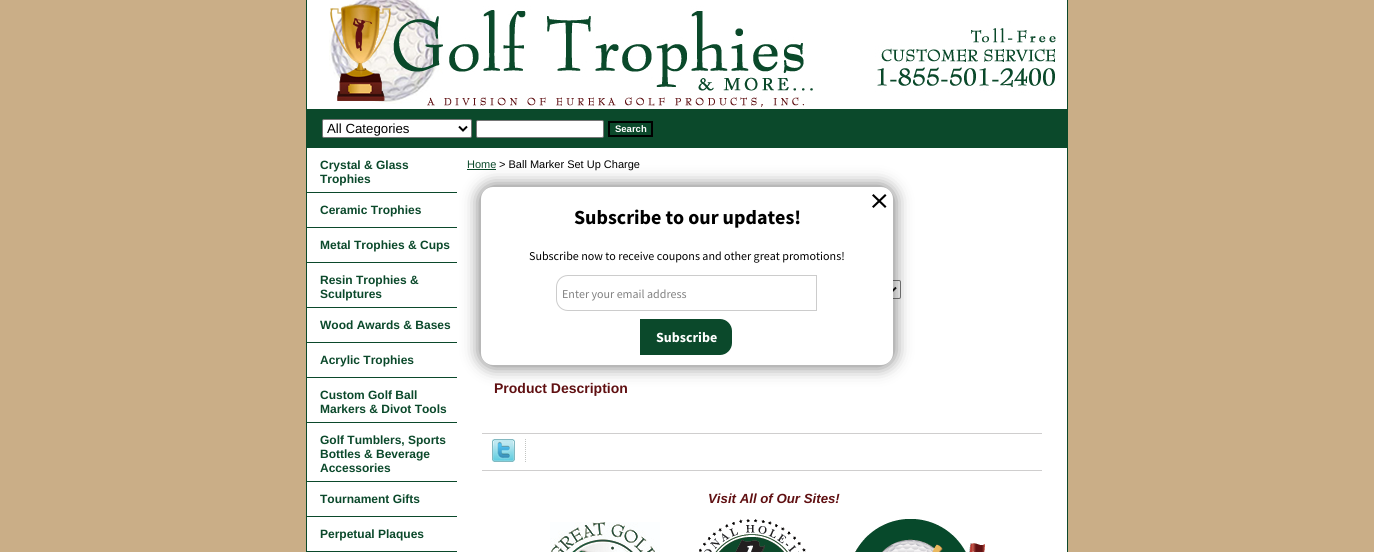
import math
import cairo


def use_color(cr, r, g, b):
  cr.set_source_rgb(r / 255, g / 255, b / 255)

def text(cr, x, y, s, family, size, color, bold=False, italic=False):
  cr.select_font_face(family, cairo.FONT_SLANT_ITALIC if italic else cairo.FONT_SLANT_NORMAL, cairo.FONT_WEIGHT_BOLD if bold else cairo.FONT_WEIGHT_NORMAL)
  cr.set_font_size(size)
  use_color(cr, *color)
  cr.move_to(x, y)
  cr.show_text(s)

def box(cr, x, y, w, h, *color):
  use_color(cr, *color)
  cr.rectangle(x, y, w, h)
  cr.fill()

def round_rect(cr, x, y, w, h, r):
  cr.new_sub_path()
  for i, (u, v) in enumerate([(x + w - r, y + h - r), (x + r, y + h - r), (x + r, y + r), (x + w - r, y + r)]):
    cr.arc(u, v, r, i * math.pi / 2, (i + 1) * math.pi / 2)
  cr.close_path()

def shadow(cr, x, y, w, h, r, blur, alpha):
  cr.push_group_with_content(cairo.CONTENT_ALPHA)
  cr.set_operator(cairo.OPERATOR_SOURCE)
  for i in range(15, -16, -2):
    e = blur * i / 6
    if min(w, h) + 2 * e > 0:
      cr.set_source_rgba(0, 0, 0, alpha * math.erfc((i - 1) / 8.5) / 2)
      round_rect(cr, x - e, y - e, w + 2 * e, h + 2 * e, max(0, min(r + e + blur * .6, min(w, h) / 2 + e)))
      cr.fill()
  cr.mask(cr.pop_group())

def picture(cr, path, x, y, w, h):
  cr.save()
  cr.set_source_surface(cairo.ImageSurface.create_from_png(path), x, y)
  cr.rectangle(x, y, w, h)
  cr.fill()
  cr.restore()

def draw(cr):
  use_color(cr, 202, 174, 135)
  cr.paint()
  use_color(cr, 255, 255, 255)
  cr.rectangle(306.5, -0.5, 761, 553)
  cr.fill_preserve()
  use_color(cr, 11, 73, 43)
  cr.set_line_width(1)
  cr.stroke()
  picture(cr, "img_01.png", 329, 0, 727, 107)
  box(cr, 518, 10, 7, 1, 255, 255, 255)
  box(cr, 697, 10, 6, 1, 255, 255, 255)
  box(cr, 307, 109, 760, 39, 11, 73, 43)
  use_color(cr, 255, 255, 255)
  round_rect(cr, 322.5, 119.5, 149, 18, 1.5)
  cr.fill_preserve()
  use_color(cr, 118, 118, 118)
  cr.stroke()
  cr.new_path()
  cr.move_to(459, 126.5)
  cr.line_to(463, 130.5)
  cr.line_to(467, 126.5)
  use_color(cr, 0, 0, 0)
  cr.set_line_width(2)
  cr.stroke()
  use_color(cr, 255, 255, 255)
  round_rect(cr, 476.5, 120.5, 127, 17, 1.5)
  cr.fill_preserve()
  use_color(cr, 118, 118, 118)
  cr.set_line_width(1)
  cr.stroke()
  cr.rectangle(609, 122, 43, 14)
  use_color(cr, 0, 0, 0)
  cr.set_line_width(2)
  cr.stroke()
  box(cr, 307, 192, 150, 1, 11, 73, 43)
  box(cr, 307, 227, 150, 1, 11, 73, 43)
  box(cr, 307, 262, 150, 1, 11, 73, 43)
  box(cr, 307, 307, 150, 1, 11, 73, 43)
  box(cr, 307, 342, 150, 1, 11, 73, 43)
  box(cr, 307, 377, 150, 1, 11, 73, 43)
  box(cr, 307, 422, 150, 1, 11, 73, 43)
  box(cr, 307, 481, 150, 1, 11, 73, 43)
  box(cr, 307, 516, 150, 1, 11, 73, 43)
  box(cr, 307, 551, 150, 1, 11, 73, 43)
  box(cr, 467, 169, 29, 1, 11, 73, 43)
  round_rect(cr, 771.5, 280.5, 129, 18, 1.5)
  use_color(cr, 118, 118, 118)
  cr.set_line_width(1)
  cr.stroke()
  cr.new_path()
  cr.move_to(888, 287.5)
  cr.line_to(892, 291.5)
  cr.line_to(896, 287.5)
  use_color(cr, 0, 0, 0)
  cr.set_line_width(2)
  cr.stroke()
  box(cr, 482, 433, 560, 1, 207, 206, 206)
  picture(cr, "img_02.png", 492, 439, 23, 23)
  picture(cr, "img_03.png", 525, 439, 1, 23)
  box(cr, 482, 470, 560, 1, 207, 206, 206)
  picture(cr, "img_04.png", 550, 522, 110, 30)
  picture(cr, "img_05.png", 699, 519, 107, 33)
  picture(cr, "img_06.png", 855, 519, 130, 33)
  use_color(cr, 50, 50, 50)
  shadow(cr, 480, 186, 414, 180, 13, 8.5, 0.69)
  use_color(cr, 255, 255, 255)
  round_rect(cr, 481, 187, 412, 178, 12)
  cr.fill()
  use_color(cr, 0, 0, 0)
  cr.new_path()
  cr.move_to(873.5, 194)
  cr.line_to(886.5, 206.5)
  cr.line_to(885, 208)
  cr.line_to(872, 195.5)
  cr.close_path()
  cr.fill()
  cr.new_path()
  cr.move_to(872, 206.5)
  cr.line_to(885, 194)
  cr.line_to(886.5, 195.5)
  cr.line_to(873.5, 208)
  cr.close_path()
  cr.fill()
  cr.new_path()
  cr.move_to(568, 275.5)
  cr.line_to(816.5, 275.5)
  cr.line_to(816.5, 310.5)
  cr.line_to(568, 310.5)
  cr.curve_to(561.5, 310.5, 556.5, 305.5, 556.5, 299)
  cr.line_to(556.5, 287)
  cr.curve_to(556.5, 280.5, 561.5, 275.5, 568, 275.5)
  cr.close_path()
  use_color(cr, 204, 204, 204)
  cr.set_line_width(1)
  cr.stroke()
  use_color(cr, 11, 73, 43)
  cr.new_path()
  cr.move_to(640, 319)
  cr.line_to(720, 319)
  cr.curve_to(726.5, 319, 732, 324.5, 732, 331)
  cr.line_to(732, 343)
  cr.curve_to(732, 349.5, 726.5, 355, 720, 355)
  cr.line_to(640, 355)
  cr.close_path()
  cr.fill()
  text(cr, 327, 133, "All Categories", "Liberation Sans", 13.25, (0, 0, 0))
  text(cr, 615, 132, "Search", "Liberation Sans", 9.5, (255, 255, 255), bold=True)
  text(cr, 320, 169, "Crystal & Glass", "Liberation Sans", 12, (11, 73, 43), bold=True)
  text(cr, 320, 183, "Trophies", "Liberation Sans", 12, (11, 73, 43), bold=True)
  text(cr, 320, 214, "Ceramic Trophies", "Liberation Sans", 12, (11, 73, 43), bold=True)
  text(cr, 320, 249, "Metal Trophies & Cups", "Liberation Sans", 12, (11, 73, 43), bold=True)
  text(cr, 320, 284, "Resin Trophies &", "Liberation Sans", 12, (11, 73, 43), bold=True)
  text(cr, 320, 298, "Sculptures", "Liberation Sans", 12, (11, 73, 43), bold=True)
  text(cr, 320, 329, "Wood Awards & Bases", "Liberation Sans", 12, (11, 73, 43), bold=True)
  text(cr, 320, 364, "Acrylic Trophies", "Liberation Sans", 12, (11, 73, 43), bold=True)
  text(cr, 320, 399, "Custom Golf Ball", "Liberation Sans", 12, (11, 73, 43), bold=True)
  text(cr, 320, 413, "Markers & Divot Tools", "Liberation Sans", 12, (11, 73, 43), bold=True)
  text(cr, 320, 444, "Golf Tumblers, Sports", "Liberation Sans", 12, (11, 73, 43), bold=True)
  text(cr, 320, 458, "Bottles & Beverage", "Liberation Sans", 12, (11, 73, 43), bold=True)
  text(cr, 320, 472, "Accessories", "Liberation Sans", 12, (11, 73, 43), bold=True)
  text(cr, 320, 503, "Tournament Gifts", "Liberation Sans", 12, (11, 73, 43), bold=True)
  text(cr, 320, 538, "Perpetual Plaques", "Liberation Sans", 12, (11, 73, 43), bold=True)
  text(cr, 467, 168, "Home", "Liberation Sans", 11, (11, 73, 43))
  text(cr, 499, 168, "> Ball Marker Set Up Charge", "Liberation Sans", 11, (0, 0, 0))
  text(cr, 494, 393, "Product Description", "Liberation Sans", 14, (96, 16, 18), bold=True)
  text(cr, 708, 503, "Visit All of Our Sites!", "Liberation Sans", 13.25, (96, 16, 18), bold=True, italic=True)
  text(cr, 574, 224, "Subscribe to our updates!", "Source Sans Pro", 20, (0, 0, 0), bold=True)
  text(cr, 529, 260, "Subscribe now to receive coupons and other great promotions!", "Source Sans Pro", 12, (0, 0, 0))
  text(cr, 562, 298, "Enter your email address", "Source Sans Pro", 12, (129, 129, 129))
  text(cr, 656, 342, "Subscribe", "Source Sans Pro", 14, (255, 255, 255), bold=True)


surface = cairo.ImageSurface(cairo.FORMAT_RGB24, 1374, 552)
cr = cairo.Context(surface)
options = cairo.FontOptions()
options.set_hint_metrics(cairo.HINT_METRICS_OFF)
options.set_hint_style(cairo.HINT_STYLE_NONE)
cr.set_font_options(options)
cr.set_miter_limit(4)
draw(cr)
surface.write_to_png("out.png")
